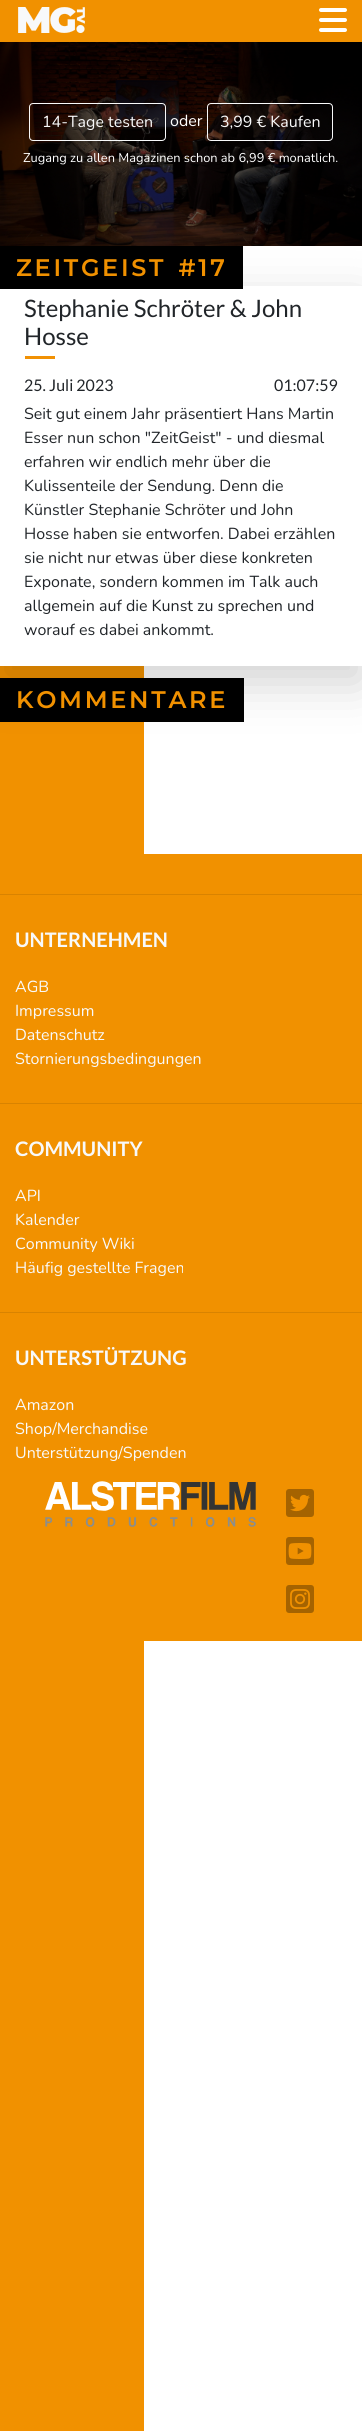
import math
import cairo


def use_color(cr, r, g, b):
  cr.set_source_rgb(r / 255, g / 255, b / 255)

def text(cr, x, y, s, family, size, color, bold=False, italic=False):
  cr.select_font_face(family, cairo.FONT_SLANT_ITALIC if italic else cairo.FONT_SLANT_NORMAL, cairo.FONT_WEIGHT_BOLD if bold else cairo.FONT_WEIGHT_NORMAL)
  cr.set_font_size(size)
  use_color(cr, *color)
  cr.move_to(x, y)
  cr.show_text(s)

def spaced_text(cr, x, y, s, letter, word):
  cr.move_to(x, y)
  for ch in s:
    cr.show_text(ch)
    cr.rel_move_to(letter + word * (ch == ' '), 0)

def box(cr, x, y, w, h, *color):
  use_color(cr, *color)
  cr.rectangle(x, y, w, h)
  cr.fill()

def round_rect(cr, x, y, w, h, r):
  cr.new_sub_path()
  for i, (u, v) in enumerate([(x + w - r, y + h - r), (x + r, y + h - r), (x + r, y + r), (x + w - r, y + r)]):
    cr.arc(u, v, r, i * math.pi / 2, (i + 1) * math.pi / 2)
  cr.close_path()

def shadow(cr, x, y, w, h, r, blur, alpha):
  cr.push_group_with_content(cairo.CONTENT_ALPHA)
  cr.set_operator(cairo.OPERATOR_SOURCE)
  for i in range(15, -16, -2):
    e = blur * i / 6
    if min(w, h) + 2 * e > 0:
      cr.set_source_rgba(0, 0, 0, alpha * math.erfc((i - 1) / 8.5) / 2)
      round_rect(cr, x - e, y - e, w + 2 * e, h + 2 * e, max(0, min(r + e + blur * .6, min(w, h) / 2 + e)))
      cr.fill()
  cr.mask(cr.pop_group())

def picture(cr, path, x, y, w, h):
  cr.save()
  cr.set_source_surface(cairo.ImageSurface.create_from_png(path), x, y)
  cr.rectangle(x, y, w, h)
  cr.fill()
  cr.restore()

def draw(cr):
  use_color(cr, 255, 255, 255)
  cr.paint()
  box(cr, 0, 0, 362, 42, 241, 145, 0)
  picture(cr, "img_01.png", 18, 7, 67, 26)
  use_color(cr, 255, 255, 255)
  round_rect(cr, 319, 18, 28, 4, 2)
  cr.fill()
  round_rect(cr, 319, 8, 28, 4, 2)
  cr.fill()
  round_rect(cr, 319, 28, 28, 4, 2)
  cr.fill()
  box(cr, 0, 666, 144, 1765, 241, 145, 0)
  use_color(cr, 0, 0, 0)
  shadow(cr, 0, 302, 362, 380, 0, 24, 0.18)
  picture(cr, "img_02.png", 0, 42, 362, 204)
  round_rect(cr, 29.5, 103.5, 136, 37, 3.5)
  use_color(cr, 248, 249, 250)
  cr.set_line_width(1)
  cr.stroke()
  round_rect(cr, 207.5, 103.5, 125, 37, 3.5)
  cr.stroke()
  box(cr, 0, 286, 362, 380, 255, 255, 255)
  box(cr, 0, 246, 243, 43, 0, 0, 0)
  box(cr, 25, 356, 30, 3, 241, 145, 4)
  box(cr, 0, 678, 244, 44, 0, 0, 0)
  box(cr, 144, 854, 218, 787, 241, 145, 0)
  box(cr, 0, 894, 362, 1, 217, 131, 0)
  box(cr, 0, 1103, 362, 1, 217, 131, 0)
  box(cr, 0, 1312, 362, 1, 217, 131, 0)
  picture(cr, "img_03.png", 45, 1481, 211, 46)
  picture(cr, "img_04.png", 286, 1489, 28, 28)
  picture(cr, "img_05.png", 286, 1537, 28, 28)
  picture(cr, "img_06.png", 286, 1585, 28, 28)
  text(cr, 42, 127, "14-Tage testen", "Nunito ExtraLight", 16, (248, 249, 250))
  text(cr, 170, 126, "oder", "Nunito ExtraLight", 16, (255, 255, 255))
  text(cr, 220, 127, "3,99 € Kaufen", "Nunito ExtraLight", 16, (248, 249, 250))
  text(cr, 23, 162, "Zugang zu allen Magazinen schon ab 6,99 € monatlich.", "Nunito ExtraLight", 12.8, (255, 255, 255))
  cr.select_font_face("Montserrat Thin")
  cr.set_font_size(24)
  use_color(cr, 241, 145, 0)
  spaced_text(cr, 16, 276, "ZEITGEIST #17", 2.7, 3)
  text(cr, 24, 317, "Stephanie Schröter & John", "Lato", 24, (33, 37, 41))
  text(cr, 24, 345, "Hosse", "Lato", 24, (33, 37, 41))
  text(cr, 24, 391, "25. Juli 2023", "Lato", 16, (33, 37, 41))
  text(cr, 274, 391, "01:07:59", "Lato", 16, (33, 37, 41))
  text(cr, 24, 419, "Seit gut einem Jahr präsentiert Hans Martin", "Nunito ExtraLight", 16, (33, 37, 41))
  text(cr, 24, 443, "Esser nun schon \"ZeitGeist\" - und diesmal", "Nunito ExtraLight", 16, (33, 37, 41))
  text(cr, 24, 467, "erfahren wir endlich mehr über die", "Nunito ExtraLight", 16, (33, 37, 41))
  text(cr, 24, 491, "Kulissenteile der Sendung. Denn die", "Nunito ExtraLight", 16, (33, 37, 41))
  text(cr, 24, 515, "Künstler Stephanie Schröter und John", "Nunito ExtraLight", 16, (33, 37, 41))
  text(cr, 24, 539, "Hosse haben sie entworfen. Dabei erzählen", "Nunito ExtraLight", 16, (33, 37, 41))
  text(cr, 24, 563, "sie nicht nur etwas über diese konkreten", "Nunito ExtraLight", 16, (33, 37, 41))
  text(cr, 24, 587, "Exponate, sondern kommen im Talk auch", "Nunito ExtraLight", 16, (33, 37, 41))
  text(cr, 24, 611, "allgemein auf die Kunst zu sprechen und", "Nunito ExtraLight", 16, (33, 37, 41))
  text(cr, 24, 635, "worauf es dabei ankommt.", "Nunito ExtraLight", 16, (33, 37, 41))
  cr.select_font_face("Montserrat Thin")
  cr.set_font_size(24)
  use_color(cr, 241, 145, 0)
  spaced_text(cr, 16, 708, "KOMMENTARE", 2.7, 0)
  text(cr, 15, 947, "UNTERNEHMEN", "Lato", 20, (248, 249, 250), bold=True)
  text(cr, 15, 992, "AGB", "Nunito ExtraLight", 16, (248, 249, 250))
  text(cr, 15, 1016, "Impressum", "Nunito ExtraLight", 16, (248, 249, 250))
  text(cr, 15, 1040, "Datenschutz", "Nunito ExtraLight", 16, (248, 249, 250))
  text(cr, 15, 1064, "Stornierungsbedingungen", "Nunito ExtraLight", 16, (248, 249, 250))
  text(cr, 15, 1156, "COMMUNITY", "Lato", 20, (248, 249, 250), bold=True)
  text(cr, 15, 1201, "API", "Nunito ExtraLight", 16, (248, 249, 250))
  text(cr, 15, 1225, "Kalender", "Nunito ExtraLight", 16, (248, 249, 250))
  text(cr, 15, 1249, "Community Wiki", "Nunito ExtraLight", 16, (248, 249, 250))
  text(cr, 15, 1273, "Häufig gestellte Fragen", "Nunito ExtraLight", 16, (248, 249, 250))
  text(cr, 15, 1365, "UNTERSTÜTZUNG", "Lato", 20, (248, 249, 250), bold=True)
  text(cr, 15, 1410, "Amazon", "Nunito ExtraLight", 16, (248, 249, 250))
  text(cr, 15, 1434, "Shop/Merchandise", "Nunito ExtraLight", 16, (248, 249, 250))
  text(cr, 15, 1458, "Unterstützung/Spenden", "Nunito ExtraLight", 16, (248, 249, 250))


surface = cairo.ImageSurface(cairo.FORMAT_RGB24, 362, 2431)
cr = cairo.Context(surface)
options = cairo.FontOptions()
options.set_hint_metrics(cairo.HINT_METRICS_OFF)
options.set_hint_style(cairo.HINT_STYLE_NONE)
cr.set_font_options(options)
cr.set_miter_limit(4)
draw(cr)
surface.write_to_png("out.png")
